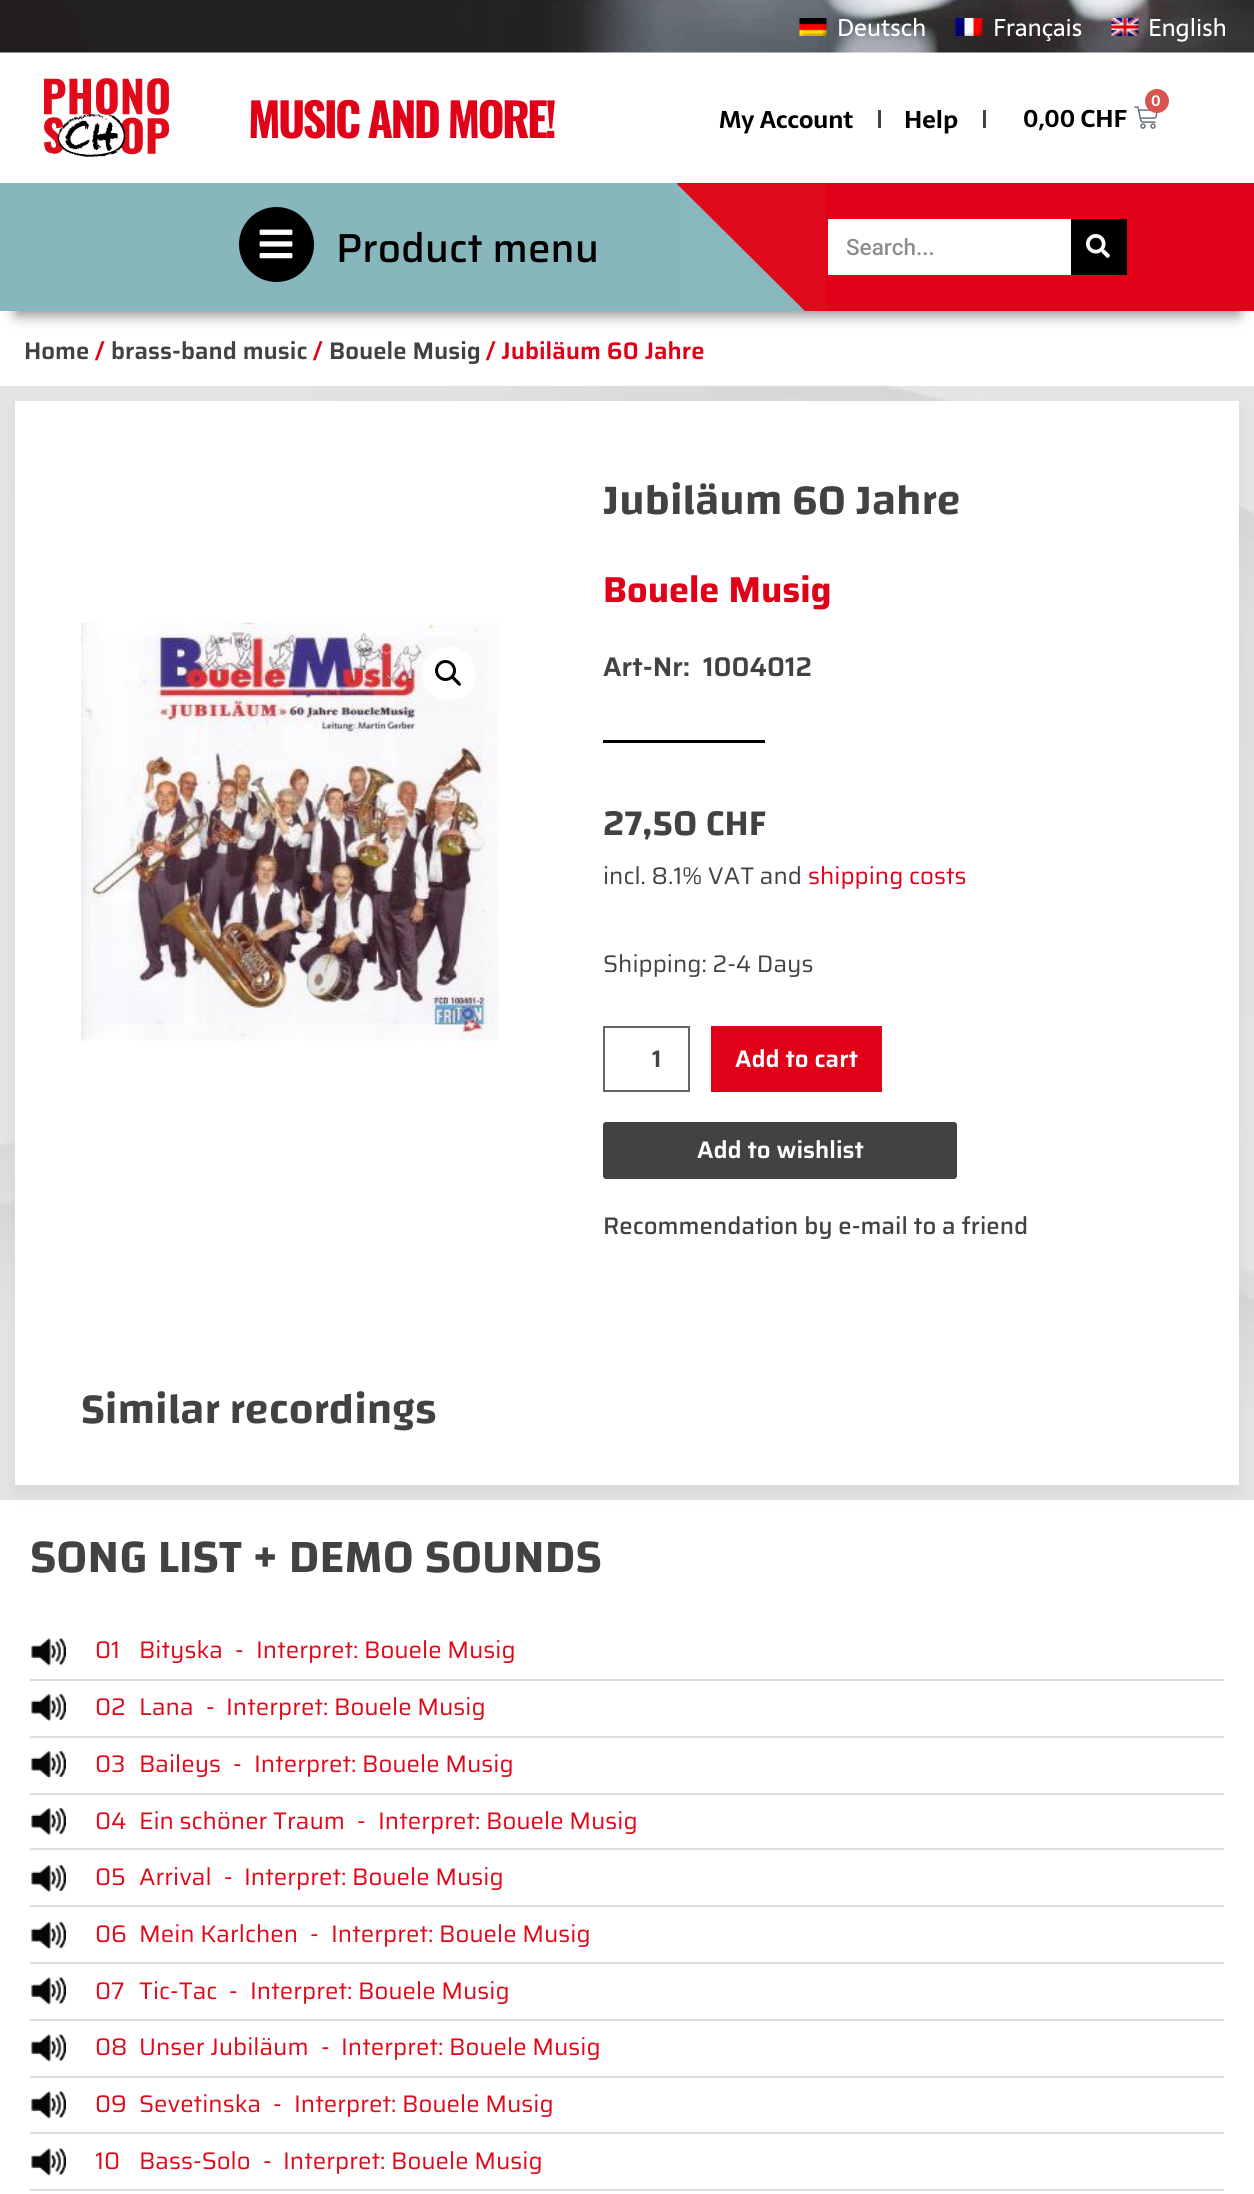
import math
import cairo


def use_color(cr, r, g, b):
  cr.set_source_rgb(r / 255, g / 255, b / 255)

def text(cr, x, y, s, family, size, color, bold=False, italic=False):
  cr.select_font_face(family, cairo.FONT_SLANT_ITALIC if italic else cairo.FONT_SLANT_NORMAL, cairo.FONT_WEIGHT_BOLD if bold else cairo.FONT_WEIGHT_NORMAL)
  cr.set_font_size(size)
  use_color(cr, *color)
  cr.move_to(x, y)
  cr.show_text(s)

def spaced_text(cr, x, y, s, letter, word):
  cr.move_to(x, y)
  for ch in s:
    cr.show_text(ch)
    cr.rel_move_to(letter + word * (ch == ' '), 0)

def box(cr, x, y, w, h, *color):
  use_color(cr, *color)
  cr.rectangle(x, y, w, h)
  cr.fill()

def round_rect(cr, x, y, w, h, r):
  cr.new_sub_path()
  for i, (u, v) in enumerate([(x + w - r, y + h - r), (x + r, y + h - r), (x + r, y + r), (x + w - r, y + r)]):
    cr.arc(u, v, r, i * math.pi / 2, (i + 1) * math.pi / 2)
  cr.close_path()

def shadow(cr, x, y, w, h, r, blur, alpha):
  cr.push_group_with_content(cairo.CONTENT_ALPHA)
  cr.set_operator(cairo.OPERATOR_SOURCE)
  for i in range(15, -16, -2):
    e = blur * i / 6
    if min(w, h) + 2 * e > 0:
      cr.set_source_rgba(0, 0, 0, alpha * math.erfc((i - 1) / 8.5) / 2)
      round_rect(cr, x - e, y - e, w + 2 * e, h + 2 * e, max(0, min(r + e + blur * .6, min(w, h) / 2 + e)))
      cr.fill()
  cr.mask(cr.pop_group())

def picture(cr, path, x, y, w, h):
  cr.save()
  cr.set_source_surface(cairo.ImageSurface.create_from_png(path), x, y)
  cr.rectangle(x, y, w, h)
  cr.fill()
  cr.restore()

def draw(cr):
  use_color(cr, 255, 255, 255)
  cr.paint()
  picture(cr, "img_01.png", 0, 0, 1254, 53)
  picture(cr, "img_02.png", 799, 18, 28, 18)
  picture(cr, "img_03.png", 955, 18, 28, 18)
  picture(cr, "img_04.png", 1111, 18, 28, 18)
  picture(cr, "img_05.png", 44, 78, 126, 80)
  box(cr, 878, 110, 3, 18, 66, 66, 66)
  box(cr, 983, 110, 3, 18, 66, 66, 66)
  picture(cr, "img_06.png", 1134, 106, 24, 23)
  use_color(cr, 217, 83, 79)
  cr.arc(1157, 101, 12, 0, 2 * math.pi)
  cr.fill()
  use_color(cr, 0, 0, 0)
  shadow(cr, 17, 219, 1221, 95, 0, 7.5, 0.5)
  box(cr, 827, 183, 427, 128, 224, 0, 23)
  box(cr, 0, 183, 677, 128, 135, 183, 188)
  box(cr, 677, 183, 150, 128, 224, 9, 25)
  cr.save()
  cr.rectangle(677, 183, 151, 128)
  cr.clip()
  use_color(cr, 136, 183, 189)
  cr.new_path()
  cr.move_to(676, 183)
  cr.line_to(827, 333)
  cr.line_to(676, 333)
  cr.close_path()
  cr.fill()
  cr.restore()
  use_color(cr, 0, 0, 0)
  cr.arc(276.5, 244.5, 37.5, 0, 2 * math.pi)
  cr.fill()
  picture(cr, "img_07.png", 259, 229, 34, 30)
  box(cr, 828, 219, 243, 56, 255, 255, 255)
  box(cr, 1071, 219, 56, 56, 0, 0, 0)
  picture(cr, "img_08.png", 1086, 234, 24, 24)
  box(cr, 0, 386, 1254, 1114, 214, 214, 216)
  picture(cr, "img_09.png", 0, 385, 1254, 1115)
  use_color(cr, 204, 204, 204)
  shadow(cr, 15, 408, 1224, 1085, 0, 7.5, 0.5)
  box(cr, 15, 401, 1224, 1084, 255, 255, 255)
  picture(cr, "img_10.png", 81, 622, 418, 419)
  cr.arc(449, 674, 27, 0, 2 * math.pi)
  cr.fill()
  cr.arc(445.5, 670.5, 9, 0, 2 * math.pi)
  use_color(cr, 0, 0, 0)
  cr.set_line_width(3)
  cr.stroke()
  cr.new_path()
  cr.move_to(452, 677)
  cr.curve_to(453.5, 675, 456.5, 679, 457.5, 680)
  cr.curve_to(458.5, 681, 462, 683.5, 460.5, 685.5)
  cr.curve_to(459, 687, 456, 683, 455, 682)
  cr.curve_to(454.5, 681, 450.5, 678.5, 452, 677)
  cr.close_path()
  cr.fill()
  box(cr, 603, 740, 162, 3, 0, 0, 0)
  cr.rectangle(604, 1027, 85, 64)
  use_color(cr, 102, 102, 102)
  cr.set_line_width(2)
  cr.stroke()
  box(cr, 711, 1026, 171, 66, 224, 0, 23)
  use_color(cr, 66, 66, 66)
  round_rect(cr, 603, 1122, 354, 57, 3)
  cr.fill()
  box(cr, 18, 1500, 1218, 3, 255, 255, 255)
  box(cr, 30, 1679, 1194, 2, 221, 221, 221)
  picture(cr, "img_11.png", 31, 1638, 35, 28)
  box(cr, 30, 1736, 1194, 2, 221, 221, 221)
  picture(cr, "img_12.png", 31, 1694, 35, 28)
  box(cr, 30, 1793, 1194, 2, 221, 221, 221)
  picture(cr, "img_12.png", 31, 1751, 35, 28)
  box(cr, 30, 1848, 1194, 2, 221, 221, 221)
  picture(cr, "img_12.png", 31, 1808, 35, 28)
  box(cr, 30, 1905, 1194, 2, 221, 221, 221)
  picture(cr, "img_12.png", 31, 1865, 35, 28)
  box(cr, 30, 1962, 1194, 2, 221, 221, 221)
  picture(cr, "img_12.png", 31, 1922, 35, 28)
  box(cr, 30, 2019, 1194, 2, 221, 221, 221)
  picture(cr, "img_11.png", 31, 1977, 35, 28)
  box(cr, 30, 2076, 1194, 2, 221, 221, 221)
  picture(cr, "img_11.png", 31, 2034, 35, 28)
  box(cr, 30, 2132, 1194, 2, 221, 221, 221)
  picture(cr, "img_11.png", 31, 2091, 35, 28)
  box(cr, 30, 2189, 1194, 2, 221, 221, 221)
  picture(cr, "img_11.png", 31, 2148, 35, 28)
  text(cr, 837, 36, "Deutsch", "Sarala", 24, (255, 255, 255))
  text(cr, 993, 36, "Français", "Sarala", 24, (255, 255, 255))
  text(cr, 1148, 36, "English", "Sarala", 24, (255, 255, 255))
  cr.select_font_face("Oswald", cairo.FONT_SLANT_NORMAL, cairo.FONT_WEIGHT_BOLD)
  cr.set_font_size(46.5)
  use_color(cr, 224, 0, 23)
  spaced_text(cr, 248, 138, "MUSIC AND MORE!", -2.75, 0)
  text(cr, 719, 128, "My Account", "Sarala", 24, (0, 0, 0), bold=True)
  text(cr, 904, 128, "Help", "Sarala", 24, (0, 0, 0), bold=True)
  text(cr, 1151, 106, "0", "Sarala", 15, (255, 255, 255), bold=True)
  text(cr, 1023, 127, "0,00 CHF", "Sarala", 24, (0, 0, 0), bold=True)
  text(cr, 336, 262, "Product menu", "Saira Medium", 40.5, (0, 0, 0))
  text(cr, 846, 255, "Search...", "Roboto Medium", 22.5, (142, 142, 142))
  text(cr, 24, 359, "Home", "Saira SemiBold", 24, (66, 66, 66))
  text(cr, 95, 359, "/", "Saira SemiBold", 24, (224, 0, 23))
  text(cr, 111, 359, "brass-band music", "Saira SemiBold", 24, (66, 66, 66))
  text(cr, 313, 359, "/", "Saira SemiBold", 24, (224, 0, 23))
  text(cr, 329, 359, "Bouele Musig", "Saira SemiBold", 24, (66, 66, 66))
  text(cr, 486, 359, "/ Jubiläum 60 Jahre", "Saira SemiBold", 24, (224, 0, 23))
  text(cr, 603, 514, "Jubiläum 60 Jahre", "Changa SemiBold", 43.5, (66, 66, 66))
  text(cr, 603, 602, "Bouele Musig", "Saira", 36, (224, 0, 23), bold=True)
  text(cr, 603, 676, "Art-Nr:", "Saira SemiBold", 27, (66, 66, 66))
  text(cr, 703, 676, "1004012", "Saira SemiBold", 27, (66, 66, 66))
  text(cr, 603, 835, "27,50 CHF", "Changa SemiBold", 37.5, (66, 66, 66))
  text(cr, 603, 884, "incl. 8.1% VAT and", "Saira", 24, (66, 66, 66))
  text(cr, 808, 884, "shipping costs", "Saira", 24, (224, 0, 23))
  text(cr, 603, 972, "Shipping: 2-4 Days", "Saira", 24, (66, 66, 66))
  text(cr, 652, 1067, "1", "Saira SemiBold", 24, (66, 66, 66))
  text(cr, 735, 1067, "Add to cart", "Saira SemiBold", 24, (255, 255, 255))
  text(cr, 697, 1158, "Add to wishlist", "Saira SemiBold", 24, (255, 255, 255))
  text(cr, 603, 1234, "Recommendation by e-mail to a friend", "Saira Medium", 24, (66, 66, 66))
  text(cr, 81, 1423, "Similar recordings", "Changa SemiBold", 43.5, (66, 66, 66))
  text(cr, 30, 1572, "SONG LIST + DEMO SOUNDS", "Changa SemiBold", 48, (66, 66, 66))
  text(cr, 95, 1658, "01", "Saira", 24, (224, 9, 25))
  text(cr, 139, 1658, "Bityska", "Saira", 24, (224, 9, 25))
  text(cr, 235, 1658, "-", "Saira", 24, (224, 9, 25))
  text(cr, 256, 1658, "Interpret: Bouele Musig", "Saira", 24, (224, 9, 25))
  text(cr, 95, 1715, "02", "Saira", 24, (224, 9, 25))
  text(cr, 139, 1715, "Lana", "Saira", 24, (224, 9, 25))
  text(cr, 206, 1715, "-", "Saira", 24, (224, 9, 25))
  text(cr, 226, 1715, "Interpret: Bouele Musig", "Saira", 24, (224, 9, 25))
  text(cr, 95, 1772, "03", "Saira", 24, (224, 9, 25))
  text(cr, 139, 1772, "Baileys", "Saira", 24, (224, 9, 25))
  text(cr, 233, 1772, "-", "Saira", 24, (224, 9, 25))
  text(cr, 254, 1772, "Interpret: Bouele Musig", "Saira", 24, (224, 9, 25))
  text(cr, 95, 1829, "04", "Saira", 24, (224, 9, 25))
  text(cr, 139, 1829, "Ein schöner Traum", "Saira", 24, (224, 9, 25))
  text(cr, 357, 1829, "-", "Saira", 24, (224, 9, 25))
  text(cr, 378, 1829, "Interpret: Bouele Musig", "Saira", 24, (224, 9, 25))
  text(cr, 95, 1885, "05", "Saira", 24, (224, 9, 25))
  text(cr, 139, 1885, "Arrival", "Saira", 24, (224, 9, 25))
  text(cr, 224, 1885, "-", "Saira", 24, (224, 9, 25))
  text(cr, 244, 1885, "Interpret: Bouele Musig", "Saira", 24, (224, 9, 25))
  text(cr, 95, 1942, "06", "Saira", 24, (224, 9, 25))
  text(cr, 139, 1942, "Mein Karlchen", "Saira", 24, (224, 9, 25))
  text(cr, 310, 1942, "-", "Saira", 24, (224, 9, 25))
  text(cr, 331, 1942, "Interpret: Bouele Musig", "Saira", 24, (224, 9, 25))
  text(cr, 95, 1999, "07", "Saira", 24, (224, 9, 25))
  text(cr, 139, 1999, "Tic-Tac", "Saira", 24, (224, 9, 25))
  text(cr, 229, 1999, "-", "Saira", 24, (224, 9, 25))
  text(cr, 250, 1999, "Interpret: Bouele Musig", "Saira", 24, (224, 9, 25))
  text(cr, 95, 2055, "08", "Saira", 24, (224, 9, 25))
  text(cr, 139, 2055, "Unser Jubiläum", "Saira", 24, (224, 9, 25))
  text(cr, 321, 2055, "-", "Saira", 24, (224, 9, 25))
  text(cr, 341, 2055, "Interpret: Bouele Musig", "Saira", 24, (224, 9, 25))
  text(cr, 95, 2112, "09", "Saira", 24, (224, 9, 25))
  text(cr, 139, 2112, "Sevetinska", "Saira", 24, (224, 9, 25))
  text(cr, 273, 2112, "-", "Saira", 24, (224, 9, 25))
  text(cr, 294, 2112, "Interpret: Bouele Musig", "Saira", 24, (224, 9, 25))
  text(cr, 95, 2169, "10", "Saira", 24, (224, 9, 25))
  text(cr, 139, 2169, "Bass-Solo", "Saira", 24, (224, 9, 25))
  text(cr, 263, 2169, "-", "Saira", 24, (224, 9, 25))
  text(cr, 283, 2169, "Interpret: Bouele Musig", "Saira", 24, (224, 9, 25))


surface = cairo.ImageSurface(cairo.FORMAT_RGB24, 1254, 2194)
cr = cairo.Context(surface)
options = cairo.FontOptions()
options.set_hint_metrics(cairo.HINT_METRICS_OFF)
options.set_hint_style(cairo.HINT_STYLE_NONE)
cr.set_font_options(options)
cr.set_miter_limit(4)
draw(cr)
surface.write_to_png("out.png")
